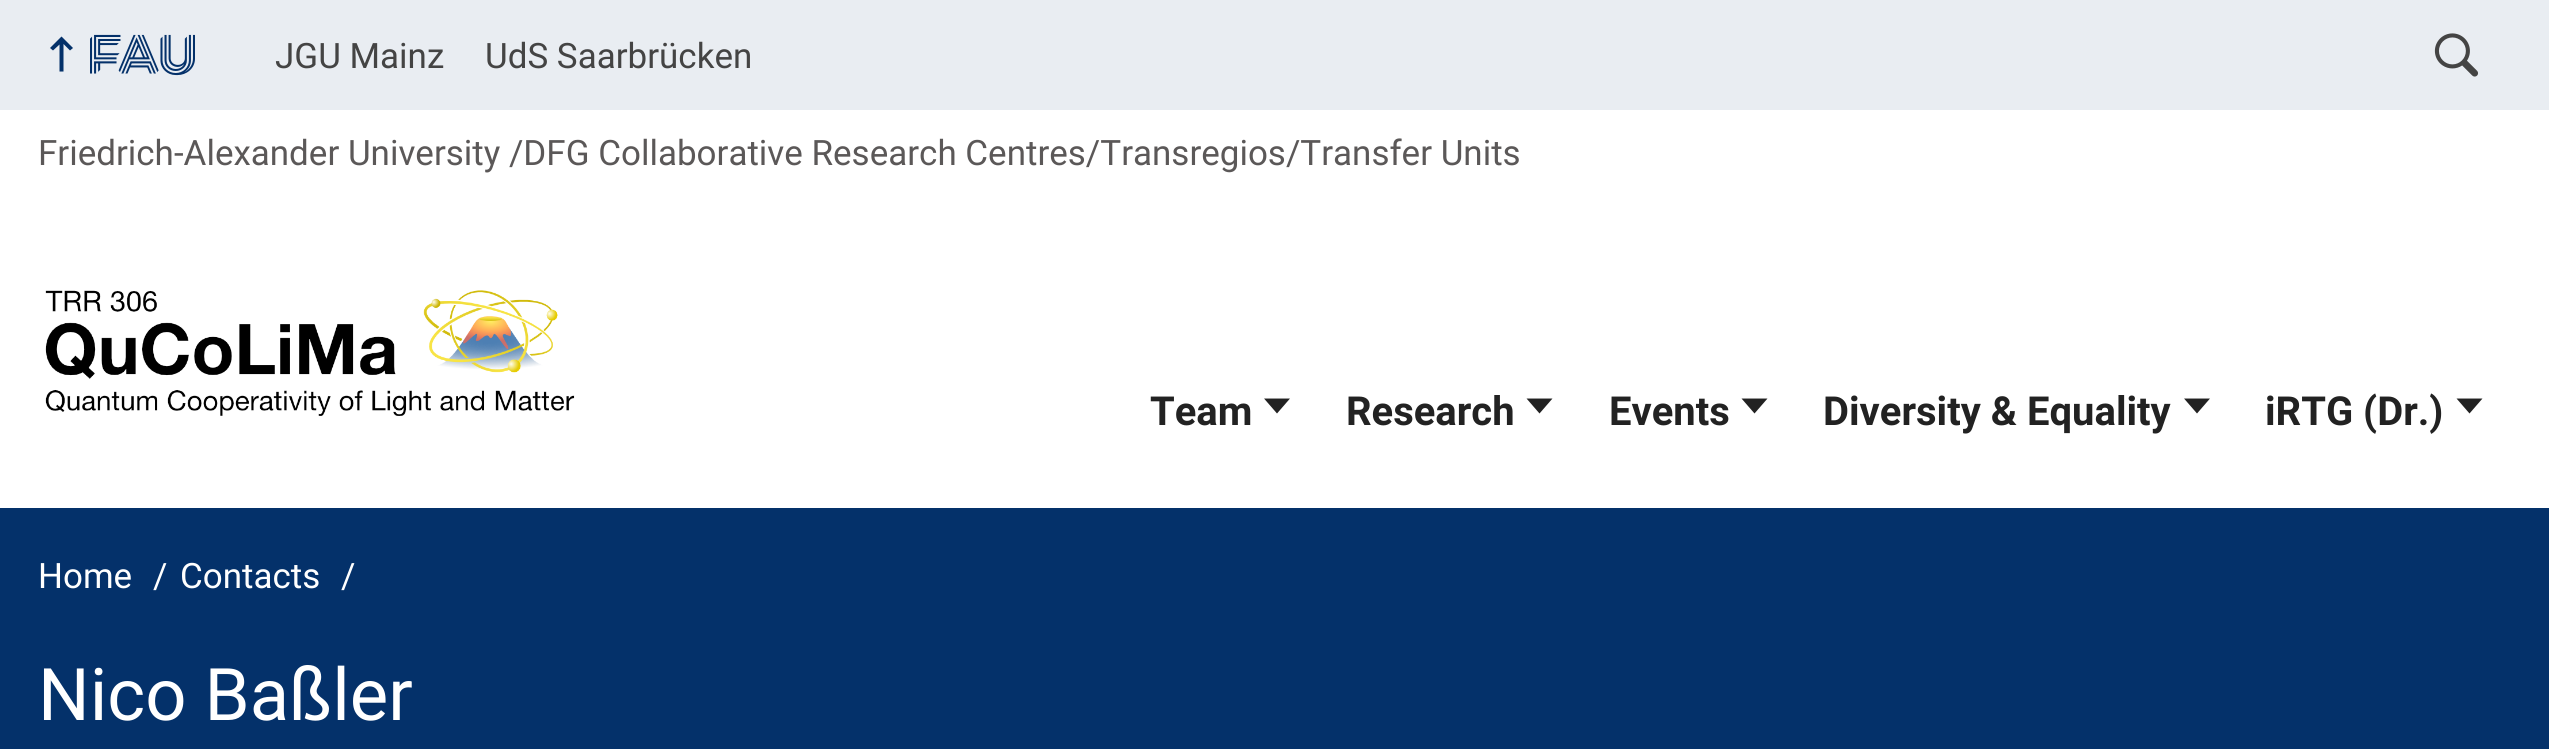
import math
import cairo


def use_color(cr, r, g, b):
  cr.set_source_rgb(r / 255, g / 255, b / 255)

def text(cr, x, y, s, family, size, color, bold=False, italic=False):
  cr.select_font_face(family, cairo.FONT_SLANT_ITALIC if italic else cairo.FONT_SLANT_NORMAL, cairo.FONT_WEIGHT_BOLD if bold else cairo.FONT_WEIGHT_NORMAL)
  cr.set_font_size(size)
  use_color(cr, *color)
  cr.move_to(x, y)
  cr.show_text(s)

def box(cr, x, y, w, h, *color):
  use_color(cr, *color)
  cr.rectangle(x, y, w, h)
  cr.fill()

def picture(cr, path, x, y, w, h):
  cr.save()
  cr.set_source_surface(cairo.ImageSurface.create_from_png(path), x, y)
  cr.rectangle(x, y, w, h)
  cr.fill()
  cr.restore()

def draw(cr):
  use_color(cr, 255, 255, 255)
  cr.paint()
  box(cr, 0, 0, 2549, 110, 233, 237, 242)
  use_color(cr, 4, 49, 106)
  cr.new_path()
  cr.move_to(73, 48)
  cr.line_to(70, 50.5)
  cr.line_to(63.5, 44)
  cr.line_to(63.5, 71.5)
  cr.line_to(59.5, 71.5)
  cr.line_to(59.5, 44.5)
  cr.line_to(53, 50.5)
  cr.line_to(50, 48)
  cr.line_to(61.5, 36.5)
  cr.close_path()
  cr.fill()
  picture(cr, "img_01.png", 90, 34, 105, 42)
  picture(cr, "img_02.png", 2434, 33, 45, 44)
  picture(cr, "img_03.png", 45, 290, 530, 126)
  use_color(cr, 34, 34, 34)
  cr.new_path()
  cr.move_to(1264, 398.5)
  cr.line_to(1277, 413.5)
  cr.line_to(1290, 398.5)
  cr.close_path()
  cr.fill()
  cr.new_path()
  cr.move_to(1526.5, 398.5)
  cr.line_to(1539.5, 413.5)
  cr.line_to(1552.5, 398.5)
  cr.close_path()
  cr.fill()
  cr.new_path()
  cr.move_to(1741.5, 398.5)
  cr.line_to(1754.5, 413.5)
  cr.line_to(1767.5, 398.5)
  cr.close_path()
  cr.fill()
  cr.new_path()
  cr.move_to(2184, 398.5)
  cr.line_to(2197, 413.5)
  cr.line_to(2210, 398.5)
  cr.close_path()
  cr.fill()
  cr.new_path()
  cr.move_to(2456.5, 398.5)
  cr.line_to(2469.5, 413.5)
  cr.line_to(2482.5, 398.5)
  cr.close_path()
  cr.fill()
  box(cr, 0, 508, 2549, 241, 4, 49, 106)
  text(cr, 275, 68, "JGU Mainz", "Roboto", 35, (68, 68, 68))
  text(cr, 485, 68, "UdS Saarbrücken", "Roboto", 35, (68, 68, 68))
  text(cr, 38, 165, "Friedrich-Alexander University /DFG Collaborative Research Centres/Transregios/Transfer Units", "Roboto", 35, (91, 88, 88))
  text(cr, 1150, 425, "Team", "Roboto", 40, (34, 34, 34), bold=True)
  text(cr, 1346, 425, "Research", "Roboto", 40, (34, 34, 34), bold=True)
  text(cr, 1609, 425, "Events", "Roboto", 40, (34, 34, 34), bold=True)
  text(cr, 1823, 425, "Diversity & Equality", "Roboto", 40, (34, 34, 34), bold=True)
  text(cr, 2265, 425, "iRTG (Dr.)", "Roboto", 40, (34, 34, 34), bold=True)
  text(cr, 38, 588, "Home", "Roboto", 35, (255, 255, 255))
  text(cr, 153, 588, "/", "Roboto", 35, (255, 255, 255))
  text(cr, 180, 588, "Contacts", "Roboto", 35, (255, 255, 255))
  text(cr, 341, 588, "/", "Roboto", 35, (255, 255, 255))
  text(cr, 38, 720, "Nico Baßler", "Roboto", 72.5, (255, 255, 255))


surface = cairo.ImageSurface(cairo.FORMAT_RGB24, 2549, 749)
cr = cairo.Context(surface)
options = cairo.FontOptions()
options.set_hint_metrics(cairo.HINT_METRICS_OFF)
options.set_hint_style(cairo.HINT_STYLE_NONE)
cr.set_font_options(options)
cr.set_miter_limit(4)
draw(cr)
surface.write_to_png("out.png")
